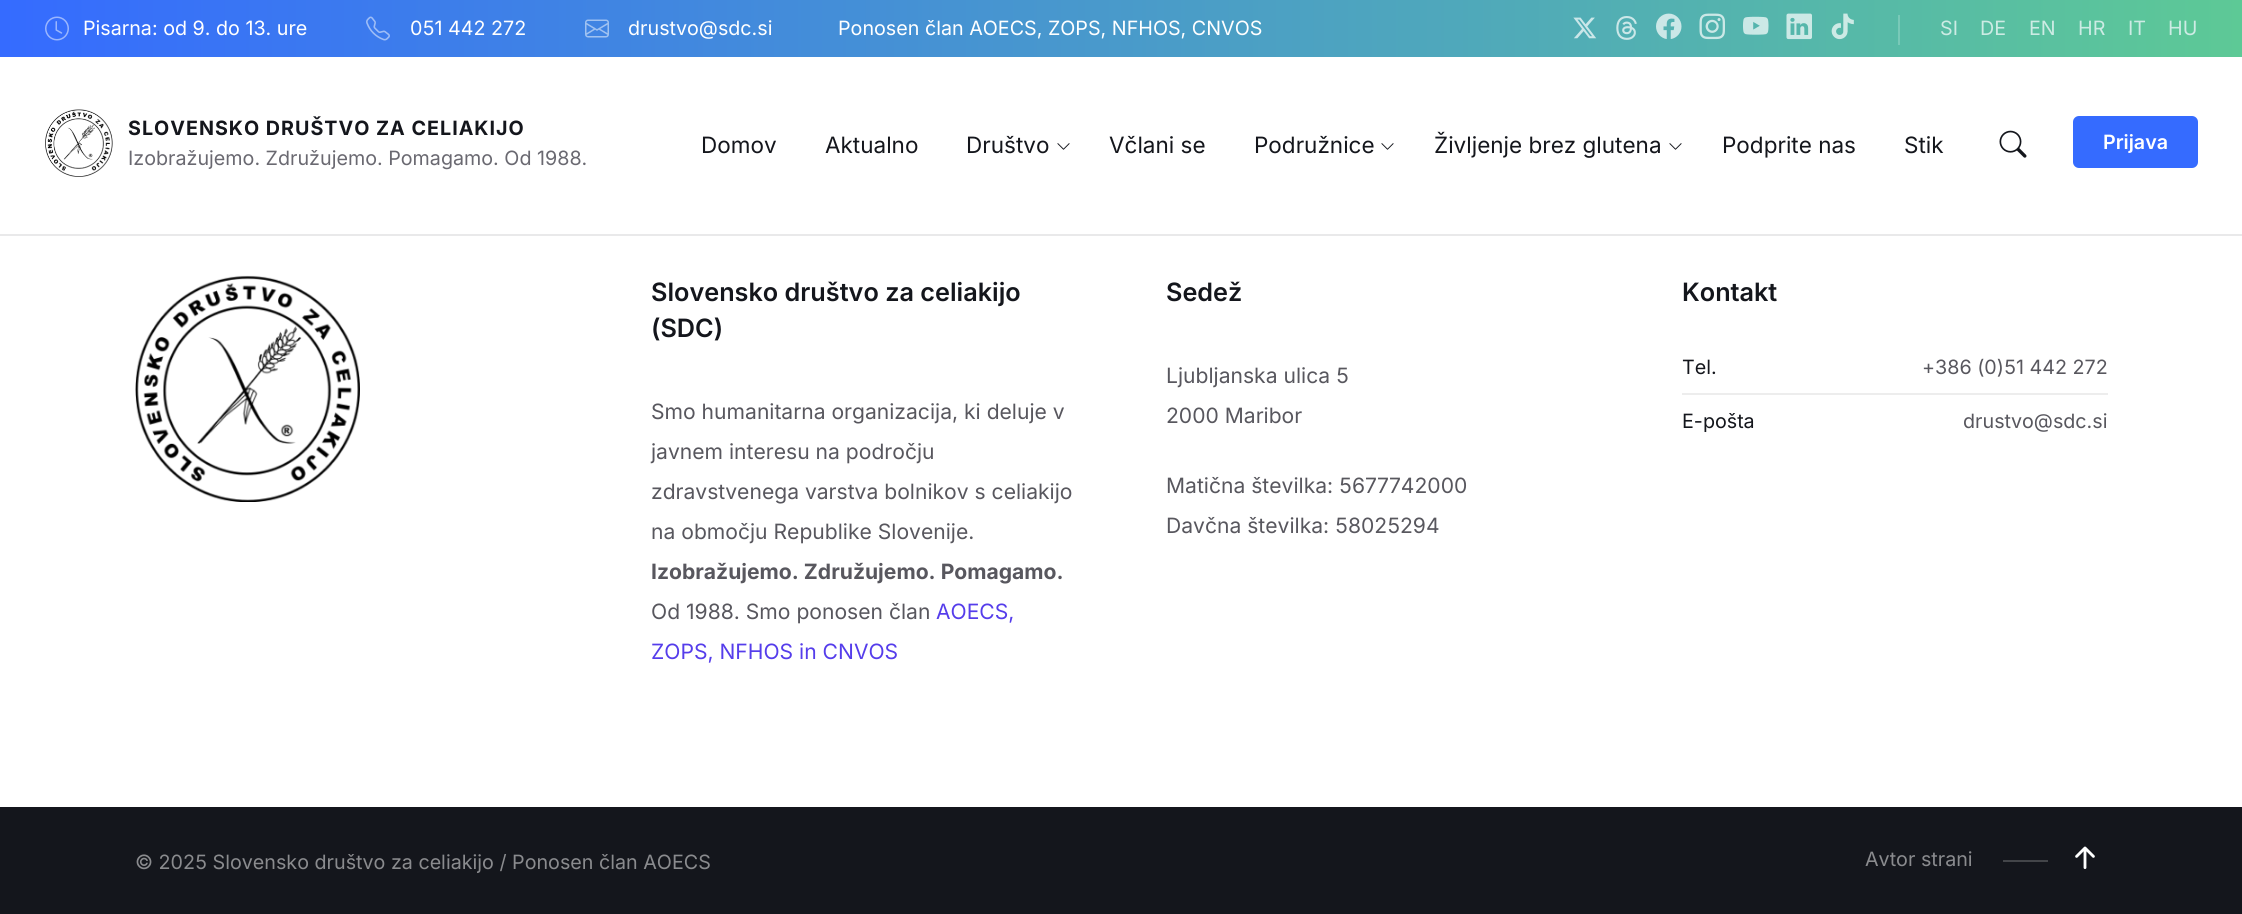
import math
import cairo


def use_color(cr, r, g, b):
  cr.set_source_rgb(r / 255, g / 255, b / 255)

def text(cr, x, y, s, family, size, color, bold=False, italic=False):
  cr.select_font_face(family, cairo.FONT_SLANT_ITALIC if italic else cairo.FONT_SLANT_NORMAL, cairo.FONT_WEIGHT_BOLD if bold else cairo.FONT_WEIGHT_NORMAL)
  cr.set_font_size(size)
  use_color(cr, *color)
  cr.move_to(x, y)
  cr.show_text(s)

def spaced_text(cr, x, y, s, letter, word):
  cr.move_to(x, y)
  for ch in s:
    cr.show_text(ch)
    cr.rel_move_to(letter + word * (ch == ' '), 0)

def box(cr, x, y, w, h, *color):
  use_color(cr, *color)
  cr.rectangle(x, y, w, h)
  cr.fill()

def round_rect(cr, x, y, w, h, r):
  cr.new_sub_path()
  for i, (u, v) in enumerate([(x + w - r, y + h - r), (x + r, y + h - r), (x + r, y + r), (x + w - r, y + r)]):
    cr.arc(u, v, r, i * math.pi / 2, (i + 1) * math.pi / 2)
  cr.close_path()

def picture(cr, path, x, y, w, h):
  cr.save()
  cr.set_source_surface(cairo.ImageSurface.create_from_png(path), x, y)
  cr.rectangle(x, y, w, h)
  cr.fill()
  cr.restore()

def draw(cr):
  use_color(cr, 255, 255, 255)
  cr.paint()
  box(cr, 0, 234, 2242, 2, 233, 233, 234)
  gradient = cairo.LinearGradient(0, 3.8, 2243, 3.7)
  gradient.add_color_stop_rgba(0, 0.208, 0.42, 1, 1)
  gradient.add_color_stop_rgba(1, 0.365, 0.788, 0.588, 1)
  cr.set_source(gradient)
  cr.rectangle(0, 0, 2242, 8)
  cr.fill()
  gradient = cairo.LinearGradient(0, 32, 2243, 32)
  gradient.add_color_stop_rgba(0, 0.208, 0.42, 1, 1)
  gradient.add_color_stop_rgba(1, 0.365, 0.788, 0.588, 1)
  cr.set_source(gradient)
  cr.rectangle(0, 8, 2242, 49)
  cr.fill()
  picture(cr, "img_01.png", 45, 16, 24, 25)
  picture(cr, "img_02.png", 366, 16, 24, 25)
  picture(cr, "img_03.png", 585, 19, 24, 19)
  picture(cr, "img_04.png", 1573, 17, 24, 22)
  picture(cr, "img_05.png", 1616, 16, 21, 24)
  picture(cr, "img_06.png", 1656, 13, 26, 26)
  picture(cr, "img_07.png", 1699, 13, 26, 27)
  picture(cr, "img_08.png", 1743, 16, 26, 19)
  picture(cr, "img_09.png", 1786, 13, 26, 27)
  picture(cr, "img_10.png", 1831, 13, 23, 27)
  box(cr, 1898, 15, 2, 30, 121, 201, 184)
  picture(cr, "img_11.png", 45, 109, 68, 68)
  picture(cr, "img_12.png", 1057, 143, 13, 7)
  picture(cr, "img_12.png", 1381, 143, 13, 7)
  picture(cr, "img_12.png", 1669, 143, 13, 7)
  picture(cr, "img_13.png", 1999, 130, 28, 28)
  use_color(cr, 53, 107, 255)
  round_rect(cr, 2073, 116, 125, 52, 6)
  cr.fill()
  picture(cr, "img_14.png", 135, 275, 225, 227)
  box(cr, 1682, 393, 426, 2, 237, 237, 237)
  box(cr, 0, 807, 2242, 107, 20, 22, 28)
  box(cr, 2003, 860, 45, 2, 67, 69, 73)
  picture(cr, "img_15.png", 2075, 846, 20, 23)
  text(cr, 83, 35, "Pisarna: od 9. do 13. ure", "Inter", 19.7, (255, 255, 255))
  text(cr, 410, 35, "051 442 272", "Inter", 19.7, (255, 255, 255))
  text(cr, 628, 35, "drustvo@sdc.si", "Inter", 19.7, (255, 255, 255))
  text(cr, 838, 35, "Ponosen član AOECS, ZOPS, NFHOS, CNVOS", "Inter", 19.7, (255, 255, 255))
  text(cr, 1940, 35, "SI", "Inter", 19.7, (205, 235, 228))
  text(cr, 1980, 35, "DE", "Inter", 19.7, (205, 235, 228))
  text(cr, 2029, 35, "EN", "Inter", 19.7, (205, 235, 228))
  text(cr, 2078, 35, "HR", "Inter", 19.7, (205, 235, 228))
  text(cr, 2128, 35, "IT", "Inter", 19.7, (205, 235, 228))
  text(cr, 2168, 35, "HU", "Inter", 19.7, (205, 235, 228))
  cr.select_font_face("Inter", cairo.FONT_SLANT_NORMAL, cairo.FONT_WEIGHT_BOLD)
  use_color(cr, 20, 22, 28)
  spaced_text(cr, 128, 135, "SLOVENSKO DRUŠTVO ZA CELIAKIJO", 1, 0)
  text(cr, 128, 165, "Izobražujemo. Združujemo. Pomagamo. Od 1988.", "Inter", 19.7, (106, 105, 113))
  text(cr, 701, 153, "Domov", "Inter", 22.5, (20, 22, 28))
  text(cr, 825, 153, "Aktualno", "Inter", 22.5, (20, 22, 28))
  text(cr, 966, 153, "Društvo", "Inter", 22.5, (20, 22, 28))
  text(cr, 1109, 153, "Včlani se", "Inter", 22.5, (20, 22, 28))
  text(cr, 1254, 153, "Podružnice", "Inter", 22.5, (20, 22, 28))
  text(cr, 1434, 153, "Življenje brez glutena", "Inter", 22.5, (20, 22, 28))
  text(cr, 1722, 153, "Podprite nas", "Inter", 22.5, (20, 22, 28))
  text(cr, 1904, 153, "Stik", "Inter", 22.5, (20, 22, 28))
  text(cr, 2103, 149, "Prijava", "Inter SemiBold", 19.7, (255, 255, 255))
  text(cr, 651, 301, "Slovensko društvo za celiakijo", "Inter SemiBold", 25.25, (20, 22, 28))
  text(cr, 651, 337, "(SDC)", "Inter SemiBold", 25.25, (20, 22, 28))
  text(cr, 651, 419, "Smo humanitarna organizacija, ki deluje v", "Inter", 21.1, (88, 87, 94))
  text(cr, 651, 459, "javnem interesu na področju", "Inter", 21.1, (88, 87, 94))
  text(cr, 651, 499, "zdravstvenega varstva bolnikov s celiakijo", "Inter", 21.1, (88, 87, 94))
  text(cr, 651, 539, "na območju Republike Slovenije.", "Inter", 21.1, (88, 87, 94))
  text(cr, 651, 579, "Izobražujemo. Združujemo. Pomagamo.", "Inter", 21.1, (88, 87, 94), bold=True)
  text(cr, 651, 619, "Od 1988. Smo ponosen član", "Inter", 21.1, (88, 87, 94))
  text(cr, 936, 619, "AOECS,", "Inter", 21.1, (85, 61, 235))
  text(cr, 651, 659, "ZOPS, NFHOS in CNVOS", "Inter", 21.1, (85, 61, 235))
  text(cr, 1166, 301, "Sedež", "Inter SemiBold", 25.25, (20, 22, 28))
  text(cr, 1166, 383, "Ljubljanska ulica 5", "Inter", 21.1, (88, 87, 94))
  text(cr, 1166, 423, "2000 Maribor", "Inter", 21.1, (88, 87, 94))
  text(cr, 1166, 493, "Matična številka: 5677742000", "Inter", 21.1, (88, 87, 94))
  text(cr, 1166, 533, "Davčna številka: 58025294", "Inter", 21.1, (88, 87, 94))
  text(cr, 1682, 301, "Kontakt", "Inter SemiBold", 25.25, (20, 22, 28))
  text(cr, 1682, 374, "Tel.", "Inter", 19.7, (20, 22, 28))
  text(cr, 1922, 374, "+386 (0)51 442 272", "Inter", 19.7, (88, 87, 94))
  text(cr, 1682, 428, "E-pošta", "Inter", 19.7, (20, 22, 28))
  text(cr, 1963, 428, "drustvo@sdc.si", "Inter", 19.7, (88, 87, 94))
  text(cr, 135, 869, "© 2025 Slovensko društvo za celiakijo / Ponosen član AOECS", "Inter", 19.7, (138, 139, 142))
  text(cr, 1865, 866, "Avtor strani", "Inter", 19.7, (138, 139, 142))


surface = cairo.ImageSurface(cairo.FORMAT_RGB24, 2242, 914)
cr = cairo.Context(surface)
options = cairo.FontOptions()
options.set_hint_metrics(cairo.HINT_METRICS_OFF)
options.set_hint_style(cairo.HINT_STYLE_NONE)
cr.set_font_options(options)
cr.set_miter_limit(4)
draw(cr)
surface.write_to_png("out.png")
